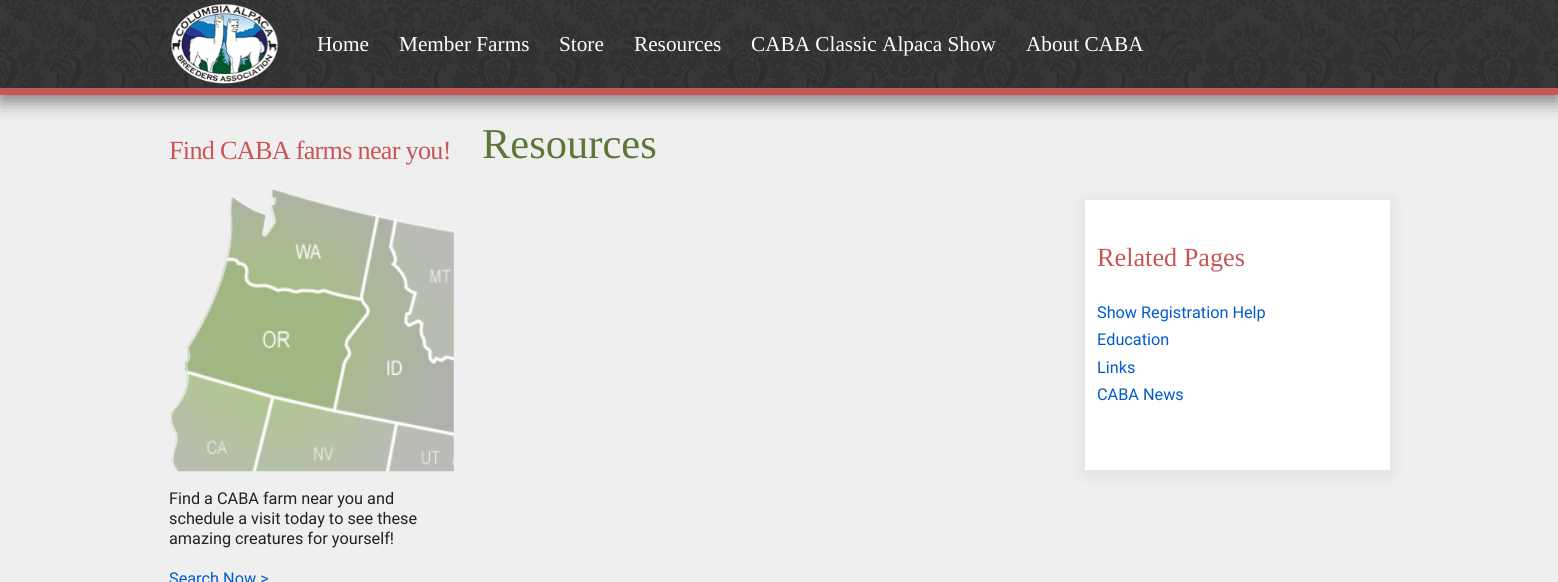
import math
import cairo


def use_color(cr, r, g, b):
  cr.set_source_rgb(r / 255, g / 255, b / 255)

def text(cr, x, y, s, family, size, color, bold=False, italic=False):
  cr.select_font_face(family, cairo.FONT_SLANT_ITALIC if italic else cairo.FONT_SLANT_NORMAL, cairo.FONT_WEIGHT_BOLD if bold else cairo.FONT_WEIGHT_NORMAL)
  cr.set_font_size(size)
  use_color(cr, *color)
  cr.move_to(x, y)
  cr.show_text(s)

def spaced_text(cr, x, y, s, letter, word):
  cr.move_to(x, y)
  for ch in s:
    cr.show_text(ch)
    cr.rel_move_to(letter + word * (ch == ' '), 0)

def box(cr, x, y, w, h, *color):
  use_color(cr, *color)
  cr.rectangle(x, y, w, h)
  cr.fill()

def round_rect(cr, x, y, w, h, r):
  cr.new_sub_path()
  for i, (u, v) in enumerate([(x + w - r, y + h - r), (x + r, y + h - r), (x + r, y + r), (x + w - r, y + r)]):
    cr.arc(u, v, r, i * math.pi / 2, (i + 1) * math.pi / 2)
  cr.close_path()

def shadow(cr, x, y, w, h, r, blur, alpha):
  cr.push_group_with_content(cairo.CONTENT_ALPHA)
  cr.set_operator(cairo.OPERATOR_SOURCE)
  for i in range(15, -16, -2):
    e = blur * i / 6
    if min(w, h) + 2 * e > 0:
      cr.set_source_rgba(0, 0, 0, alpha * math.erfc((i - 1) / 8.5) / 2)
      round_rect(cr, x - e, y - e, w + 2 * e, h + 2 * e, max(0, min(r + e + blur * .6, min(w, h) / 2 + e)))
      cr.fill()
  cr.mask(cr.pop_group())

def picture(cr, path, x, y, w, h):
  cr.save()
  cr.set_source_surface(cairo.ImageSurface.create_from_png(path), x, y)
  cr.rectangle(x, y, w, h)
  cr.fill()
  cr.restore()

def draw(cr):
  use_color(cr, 239, 239, 239)
  cr.paint()
  use_color(cr, 0, 0, 0)
  shadow(cr, 0, 6, 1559, 95, 0, 9.5, 0.5)
  picture(cr, "img_01.png", 0, 0, 1558, 88)
  box(cr, 0, 88, 1558, 7, 200, 86, 86)
  picture(cr, "img_02.png", 170, 3, 109, 81)
  picture(cr, "img_03.png", 170, 187, 284, 285)
  use_color(cr, 0, 0, 0)
  shadow(cr, 1085, 203, 305, 270, 0, 9.5, 0.08)
  box(cr, 1085, 200, 305, 270, 255, 255, 255)
  text(cr, 317, 51, "Home", "Liberation Serif", 21.25, (255, 255, 255))
  text(cr, 399, 51, "Member Farms", "Liberation Serif", 21.25, (255, 255, 255))
  text(cr, 559, 51, "Store", "Liberation Serif", 21.25, (255, 255, 255))
  text(cr, 634, 51, "Resources", "Liberation Serif", 21.25, (255, 255, 255))
  text(cr, 751, 51, "CABA Classic Alpaca Show", "Liberation Serif", 21.25, (255, 255, 255))
  text(cr, 1026, 51, "About CABA", "Liberation Serif", 21.25, (255, 255, 255))
  cr.set_font_size(26.25)
  use_color(cr, 200, 86, 86)
  spaced_text(cr, 169, 159, "Find CABA farms near you!", -0.75, 0)
  text(cr, 169, 504, "Find a CABA farm near you and", "Roboto", 16.25, (34, 34, 34))
  text(cr, 169, 524, "schedule a visit today to see these", "Roboto", 16.25, (34, 34, 34))
  text(cr, 169, 544, "amazing creatures for yourself!", "Roboto", 16.25, (34, 34, 34))
  text(cr, 169, 584, "Search Now >", "Roboto", 16.25, (1, 91, 203))
  text(cr, 482, 158, "Resources", "Liberation Serif", 42.5, (94, 119, 57))
  text(cr, 1097, 266, "Related Pages", "Liberation Serif", 26.25, (200, 86, 86))
  text(cr, 1097, 318, "Show Registration Help", "Roboto", 16.25, (1, 91, 203))
  text(cr, 1097, 345, "Education", "Roboto", 16.25, (1, 91, 203))
  text(cr, 1097, 373, "Links", "Roboto", 16.25, (1, 91, 203))
  text(cr, 1097, 400, "CABA News", "Roboto", 16.25, (1, 91, 203))


surface = cairo.ImageSurface(cairo.FORMAT_RGB24, 1558, 582)
cr = cairo.Context(surface)
options = cairo.FontOptions()
options.set_hint_metrics(cairo.HINT_METRICS_OFF)
options.set_hint_style(cairo.HINT_STYLE_NONE)
cr.set_font_options(options)
cr.set_miter_limit(4)
draw(cr)
surface.write_to_png("out.png")
